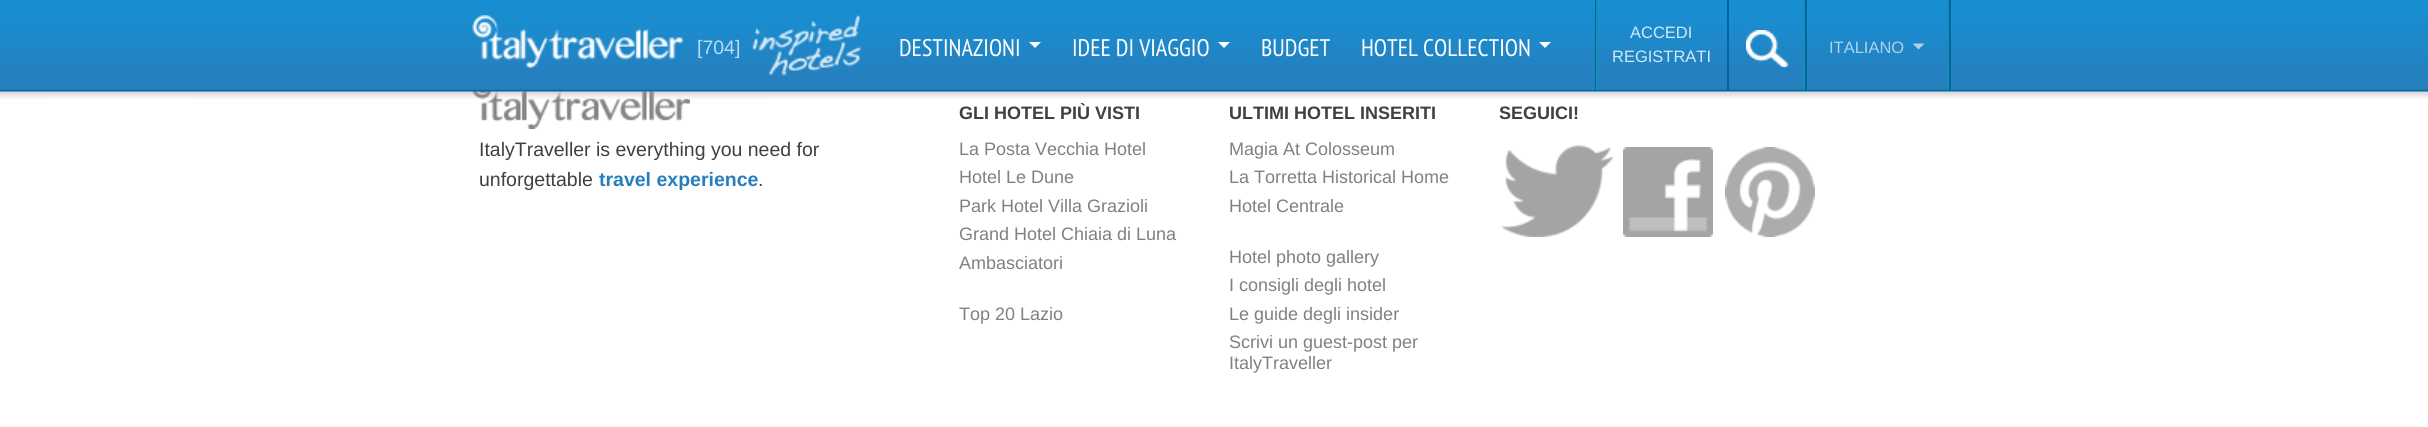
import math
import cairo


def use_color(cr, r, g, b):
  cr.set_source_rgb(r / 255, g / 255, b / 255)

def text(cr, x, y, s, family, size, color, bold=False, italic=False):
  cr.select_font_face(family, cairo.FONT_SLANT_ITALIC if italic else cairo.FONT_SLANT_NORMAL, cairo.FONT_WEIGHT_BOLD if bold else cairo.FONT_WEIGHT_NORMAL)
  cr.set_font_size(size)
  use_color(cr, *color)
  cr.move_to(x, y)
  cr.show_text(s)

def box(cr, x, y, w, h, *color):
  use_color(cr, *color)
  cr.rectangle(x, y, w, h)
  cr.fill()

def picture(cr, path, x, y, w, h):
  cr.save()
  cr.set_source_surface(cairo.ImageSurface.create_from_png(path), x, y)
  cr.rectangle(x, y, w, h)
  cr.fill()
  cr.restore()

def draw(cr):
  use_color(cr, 255, 255, 255)
  cr.paint()
  picture(cr, "img_08.png", 472, 91, 218, 38)
  picture(cr, "img_01.png", 0, 0, 2428, 99)
  picture(cr, "img_02.png", 472, 15, 211, 53)
  picture(cr, "img_03.png", 752, 15, 110, 61)
  use_color(cr, 255, 255, 255)
  cr.new_path()
  cr.move_to(1029, 42)
  cr.line_to(1041, 42)
  cr.line_to(1035, 48)
  cr.close_path()
  cr.fill()
  cr.new_path()
  cr.move_to(1218, 42)
  cr.line_to(1230, 42)
  cr.line_to(1224, 48)
  cr.close_path()
  cr.fill()
  cr.new_path()
  cr.move_to(1539, 42)
  cr.line_to(1551, 42)
  cr.line_to(1545, 48)
  cr.close_path()
  cr.fill()
  box(cr, 1595, 0, 1, 90, 0, 101, 161)
  box(cr, 1727, 0, 2, 90, 0, 101, 161)
  box(cr, 1596, 0, 2, 90, 23, 143, 179)
  box(cr, 1805, 0, 2, 90, 0, 101, 161)
  box(cr, 1803, 0, 2, 90, 23, 143, 179)
  picture(cr, "img_04.png", 1746, 30, 43, 37)
  box(cr, 1949, 0, 2, 90, 0, 101, 161)
  box(cr, 1947, 0, 2, 90, 23, 143, 179)
  use_color(cr, 173, 211, 235)
  cr.new_path()
  cr.move_to(1912.5, 43.5)
  cr.line_to(1924.5, 43.5)
  cr.line_to(1918.5, 49.5)
  cr.close_path()
  cr.fill()
  picture(cr, "img_05.png", 1501, 145, 112, 92)
  picture(cr, "img_06.png", 1623, 147, 90, 90)
  picture(cr, "img_07.png", 1725, 147, 90, 90)
  text(cr, 697, 54, "[704]", "Liberation Sans", 19.5, (189, 219, 238))
  text(cr, 899, 56, "DESTINAZIONI", "PT Sans Narrow", 24, (255, 255, 255))
  text(cr, 1072, 56, "IDEE DI VIAGGIO", "PT Sans Narrow", 24, (255, 255, 255))
  text(cr, 1261, 56, "BUDGET", "PT Sans Narrow", 24, (255, 255, 255))
  text(cr, 1361, 56, "HOTEL COLLECTION", "PT Sans Narrow", 24, (255, 255, 255))
  text(cr, 1630, 38, "ACCEDI", "Liberation Sans", 16.5, (210, 232, 245))
  text(cr, 1612, 62, "REGISTRATI", "Liberation Sans", 16.5, (210, 232, 245))
  text(cr, 1829, 53, "ITALIANO", "Liberation Sans", 16.5, (173, 211, 235))
  text(cr, 959, 119, "GLI HOTEL PIÙ VISTI", "Liberation Sans", 18, (64, 64, 64), bold=True)
  text(cr, 959, 155, "La Posta Vecchia Hotel", "Liberation Sans", 18, (128, 128, 128))
  text(cr, 959, 183, "Hotel Le Dune", "Liberation Sans", 18, (128, 128, 128))
  text(cr, 959, 212, "Park Hotel Villa Grazioli", "Liberation Sans", 18, (128, 128, 128))
  text(cr, 959, 240, "Grand Hotel Chiaia di Luna", "Liberation Sans", 18, (128, 128, 128))
  text(cr, 959, 269, "Ambasciatori", "Liberation Sans", 18, (128, 128, 128))
  text(cr, 959, 320, "Top 20 Lazio", "Liberation Sans", 18, (128, 128, 128))
  text(cr, 1229, 119, "ULTIMI HOTEL INSERITI", "Liberation Sans", 18, (64, 64, 64), bold=True)
  text(cr, 1229, 155, "Magia At Colosseum", "Liberation Sans", 18, (128, 128, 128))
  text(cr, 1229, 183, "La Torretta Historical Home", "Liberation Sans", 18, (128, 128, 128))
  text(cr, 1229, 212, "Hotel Centrale", "Liberation Sans", 18, (128, 128, 128))
  text(cr, 1229, 263, "Hotel photo gallery", "Liberation Sans", 18, (128, 128, 128))
  text(cr, 1229, 291, "I consigli degli hotel", "Liberation Sans", 18, (128, 128, 128))
  text(cr, 1229, 320, "Le guide degli insider", "Liberation Sans", 18, (128, 128, 128))
  text(cr, 1229, 348, "Scrivi un guest-post per", "Liberation Sans", 18, (128, 128, 128))
  text(cr, 1229, 369, "ItalyTraveller", "Liberation Sans", 18, (128, 128, 128))
  text(cr, 1499, 119, "SEGUICI!", "Liberation Sans", 18, (64, 64, 64), bold=True)
  text(cr, 479, 156, "ItalyTraveller is everything you need for", "Liberation Sans", 19.5, (64, 64, 64))
  text(cr, 479, 186, "unforgettable", "Liberation Sans", 19.5, (64, 64, 64))
  text(cr, 599, 186, "travel experience", "Liberation Sans", 19.5, (39, 126, 189), bold=True)
  text(cr, 758, 186, ".", "Liberation Sans", 19.5, (64, 64, 64))


surface = cairo.ImageSurface(cairo.FORMAT_RGB24, 2428, 427)
cr = cairo.Context(surface)
options = cairo.FontOptions()
options.set_hint_metrics(cairo.HINT_METRICS_OFF)
options.set_hint_style(cairo.HINT_STYLE_NONE)
cr.set_font_options(options)
cr.set_miter_limit(4)
draw(cr)
surface.write_to_png("out.png")
